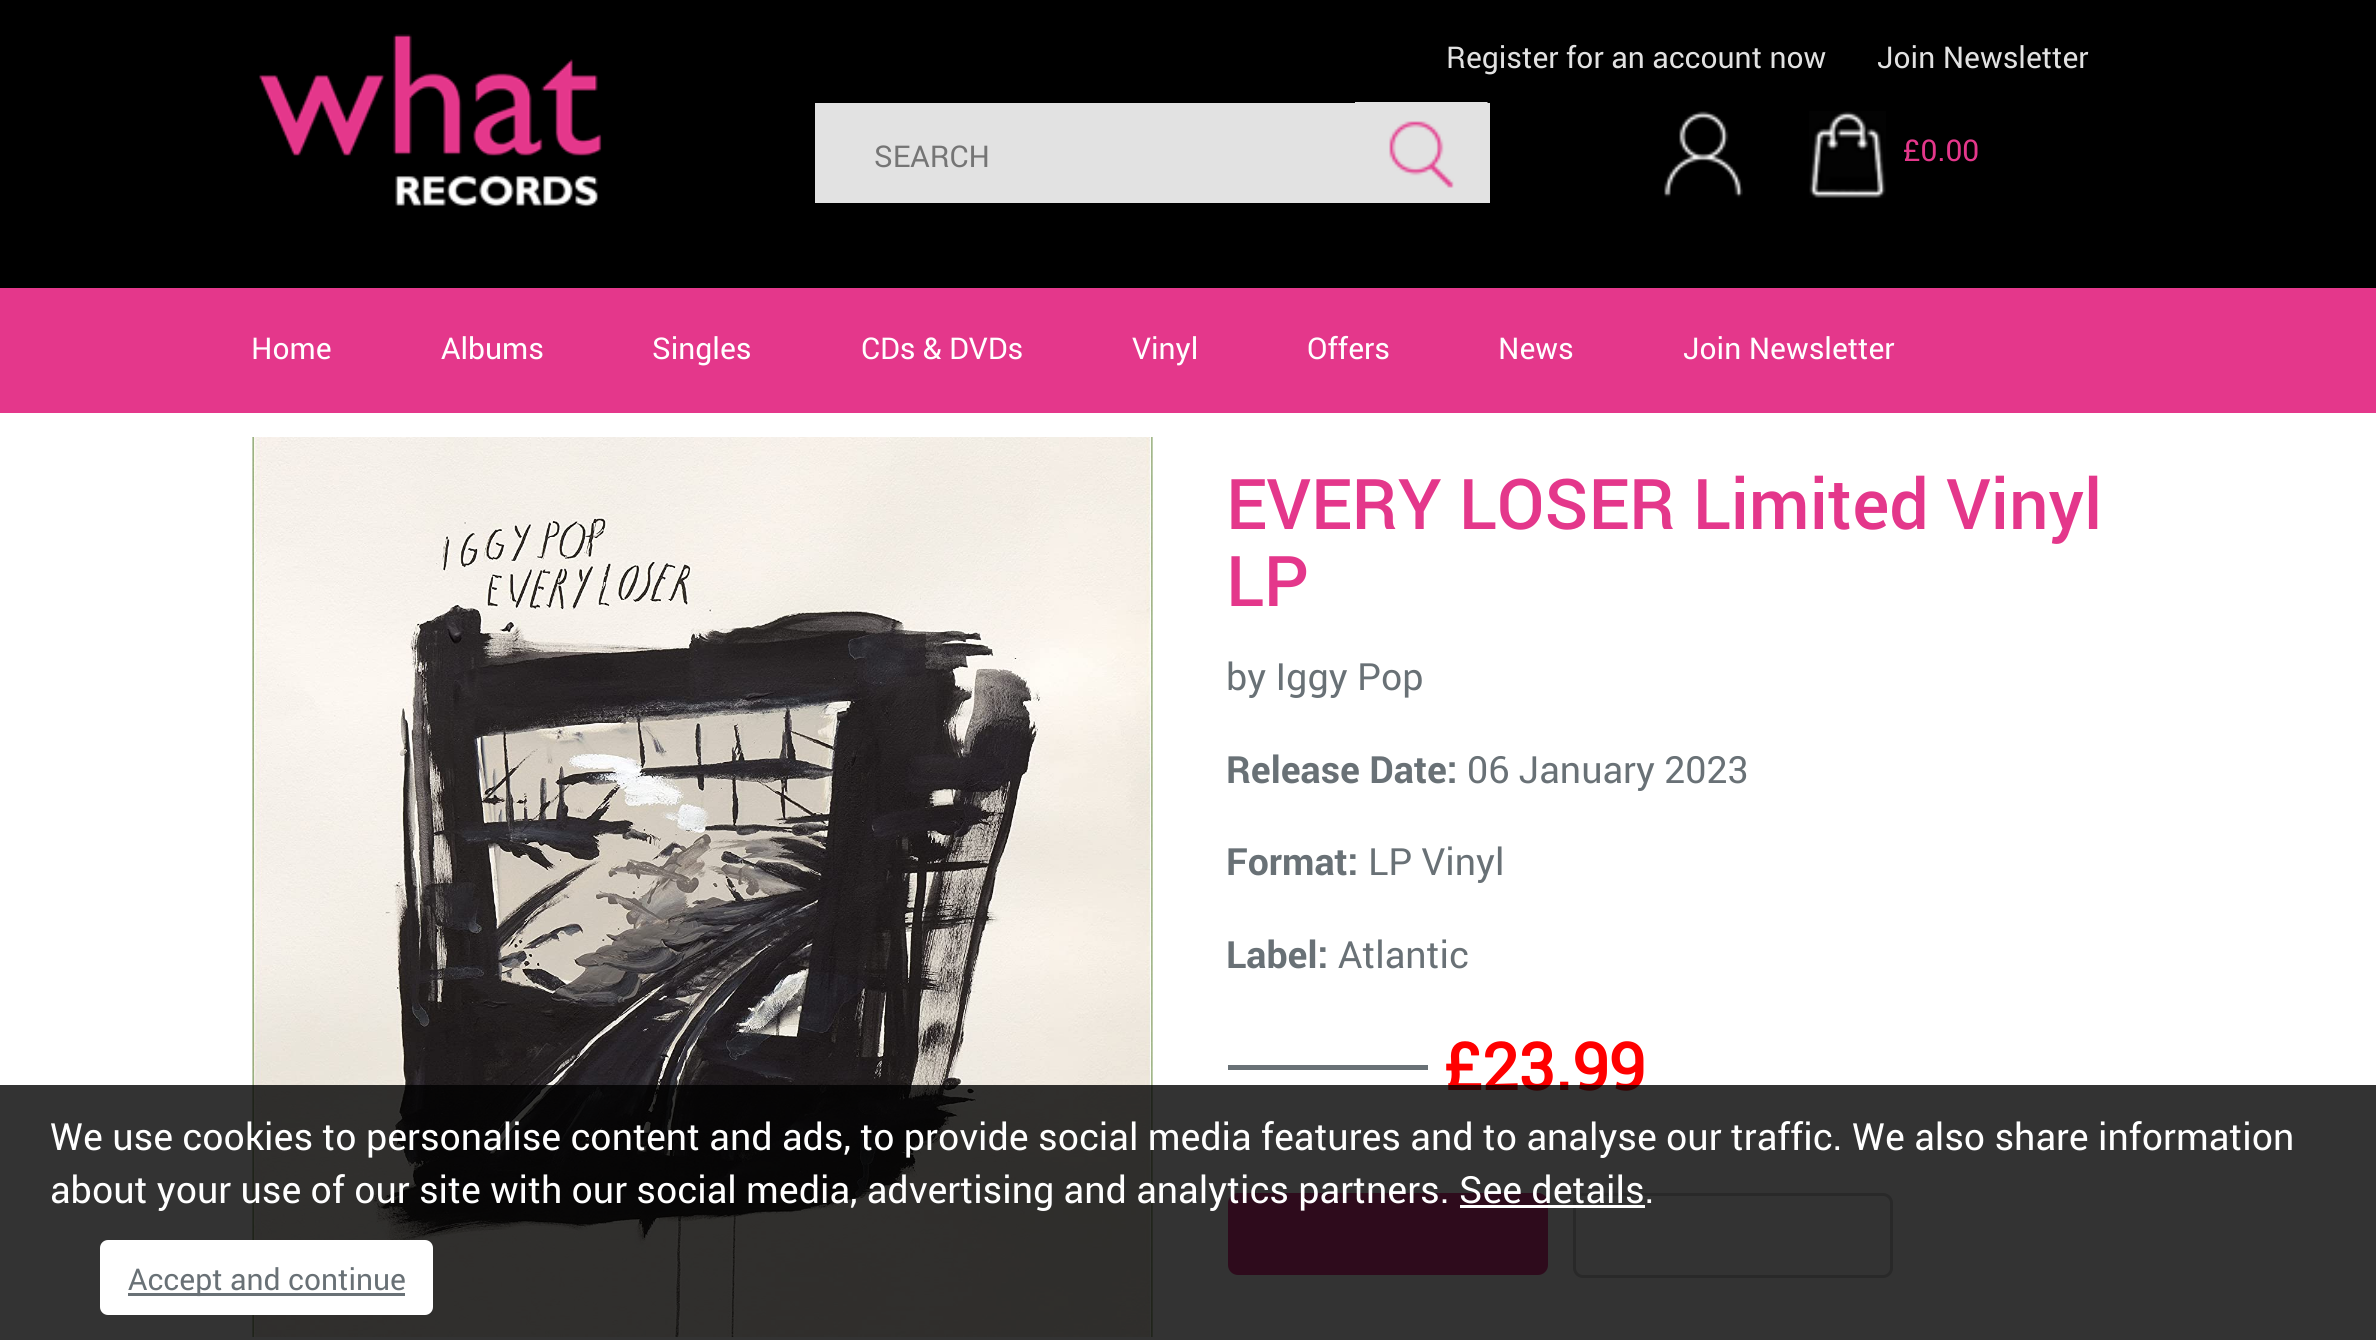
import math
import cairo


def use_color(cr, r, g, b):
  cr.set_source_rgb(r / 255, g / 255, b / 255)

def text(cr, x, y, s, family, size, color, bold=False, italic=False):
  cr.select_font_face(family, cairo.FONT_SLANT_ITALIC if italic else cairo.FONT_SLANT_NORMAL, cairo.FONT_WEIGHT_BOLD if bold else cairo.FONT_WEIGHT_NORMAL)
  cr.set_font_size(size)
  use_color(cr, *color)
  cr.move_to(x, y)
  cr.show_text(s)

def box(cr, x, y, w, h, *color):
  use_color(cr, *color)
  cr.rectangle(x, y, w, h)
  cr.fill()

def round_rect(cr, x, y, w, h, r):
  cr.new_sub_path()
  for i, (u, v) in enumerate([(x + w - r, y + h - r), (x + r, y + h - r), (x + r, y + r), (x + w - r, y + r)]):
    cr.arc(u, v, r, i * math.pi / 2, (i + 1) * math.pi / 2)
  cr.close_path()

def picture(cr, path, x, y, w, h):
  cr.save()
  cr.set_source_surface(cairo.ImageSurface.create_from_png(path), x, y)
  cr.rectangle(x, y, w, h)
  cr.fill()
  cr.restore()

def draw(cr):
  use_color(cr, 255, 255, 255)
  cr.paint()
  box(cr, 0, 0, 2376, 288, 0, 0, 0)
  picture(cr, "img_01.png", 259, 34, 343, 173)
  box(cr, 815, 103, 675, 100, 226, 226, 226)
  picture(cr, "img_02.png", 1355, 102, 133, 86)
  picture(cr, "img_03.png", 1664, 111, 79, 87)
  picture(cr, "img_04.png", 1809, 111, 77, 87)
  box(cr, 0, 288, 2376, 125, 228, 55, 139)
  picture(cr, "img_05.png", 252, 437, 901, 900)
  box(cr, 1228, 1065, 200, 5, 105, 113, 118)
  use_color(cr, 228, 55, 139)
  round_rect(cr, 1229.5, 1194.5, 317, 79, 8.5)
  cr.fill_preserve()
  cr.set_line_width(3)
  cr.stroke()
  round_rect(cr, 1574.5, 1194.5, 317, 82, 8.5)
  use_color(cr, 204, 204, 204)
  cr.stroke()
  text(cr, 1446, 68, "Register for an account now", "Roboto", 30, (226, 226, 226))
  text(cr, 1877, 68, "Join Newsletter", "Roboto", 30, (226, 226, 226))
  text(cr, 874, 167, "SEARCH", "Roboto", 30, (117, 117, 117))
  text(cr, 1903, 161, "£0.00", "Roboto", 30, (228, 55, 139))
  text(cr, 251, 359, "Home", "Roboto", 30, (255, 255, 255))
  text(cr, 441, 359, "Albums", "Roboto", 30, (255, 255, 255))
  text(cr, 652, 359, "Singles", "Roboto", 30, (255, 255, 255))
  text(cr, 861, 359, "CDs & DVDs", "Roboto", 30, (255, 255, 255))
  text(cr, 1132, 359, "Vinyl", "Roboto", 30, (255, 255, 255))
  text(cr, 1307, 359, "Offers", "Roboto", 30, (255, 255, 255))
  text(cr, 1498, 359, "News", "Roboto", 30, (255, 255, 255))
  text(cr, 1683, 359, "Join Newsletter", "Roboto", 30, (255, 255, 255))
  text(cr, 1226, 529, "EVERY LOSER Limited Vinyl", "Roboto Medium", 70, (228, 55, 139))
  text(cr, 1226, 606, "LP", "Roboto Medium", 70, (228, 55, 139))
  text(cr, 1226, 690, "by Iggy Pop", "Roboto", 37.5, (105, 113, 118))
  text(cr, 1226, 783, "Release Date:", "Roboto", 37.5, (105, 113, 118), bold=True)
  text(cr, 1467, 783, "06 January 2023", "Roboto", 37.5, (105, 113, 118))
  text(cr, 1226, 875, "Format:", "Roboto", 37.5, (105, 113, 118), bold=True)
  text(cr, 1368, 875, "LP Vinyl", "Roboto", 37.5, (105, 113, 118))
  text(cr, 1226, 968, "Label:", "Roboto", 37.5, (105, 113, 118), bold=True)
  text(cr, 1338, 968, "Atlantic", "Roboto", 37.5, (105, 113, 118))
  text(cr, 1444, 1090, "£23.99", "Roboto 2", 65, (255, 0, 0), bold=True)
  cr.set_source_rgba(0, 0, 0, 0.8)
  cr.rectangle(0, 1085, 2376, 255)
  cr.fill()
  text(cr, 50, 1150, "We use cookies to personalise content and ads, to provide social media features and to analyse our traffic. We also share information", "Roboto", 37.5, (255, 255, 255))
  text(cr, 50, 1203, "about your use of our site with our social media, advertising and analytics partners. See details.", "Roboto", 37.5, (255, 255, 255))
  box(cr, 1460, 1205, 185, 3, 255, 255, 255)
  round_rect(cr, 100, 1240, 333, 75, 8)
  cr.fill()
  box(cr, 128, 1293, 277, 3, 105, 113, 118)
  text(cr, 128, 1290, "Accept and continue", "Roboto", 30, (105, 113, 118))


surface = cairo.ImageSurface(cairo.FORMAT_RGB24, 2376, 1340)
cr = cairo.Context(surface)
options = cairo.FontOptions()
options.set_hint_metrics(cairo.HINT_METRICS_OFF)
options.set_hint_style(cairo.HINT_STYLE_NONE)
cr.set_font_options(options)
cr.set_miter_limit(4)
draw(cr)
surface.write_to_png("out.png")
